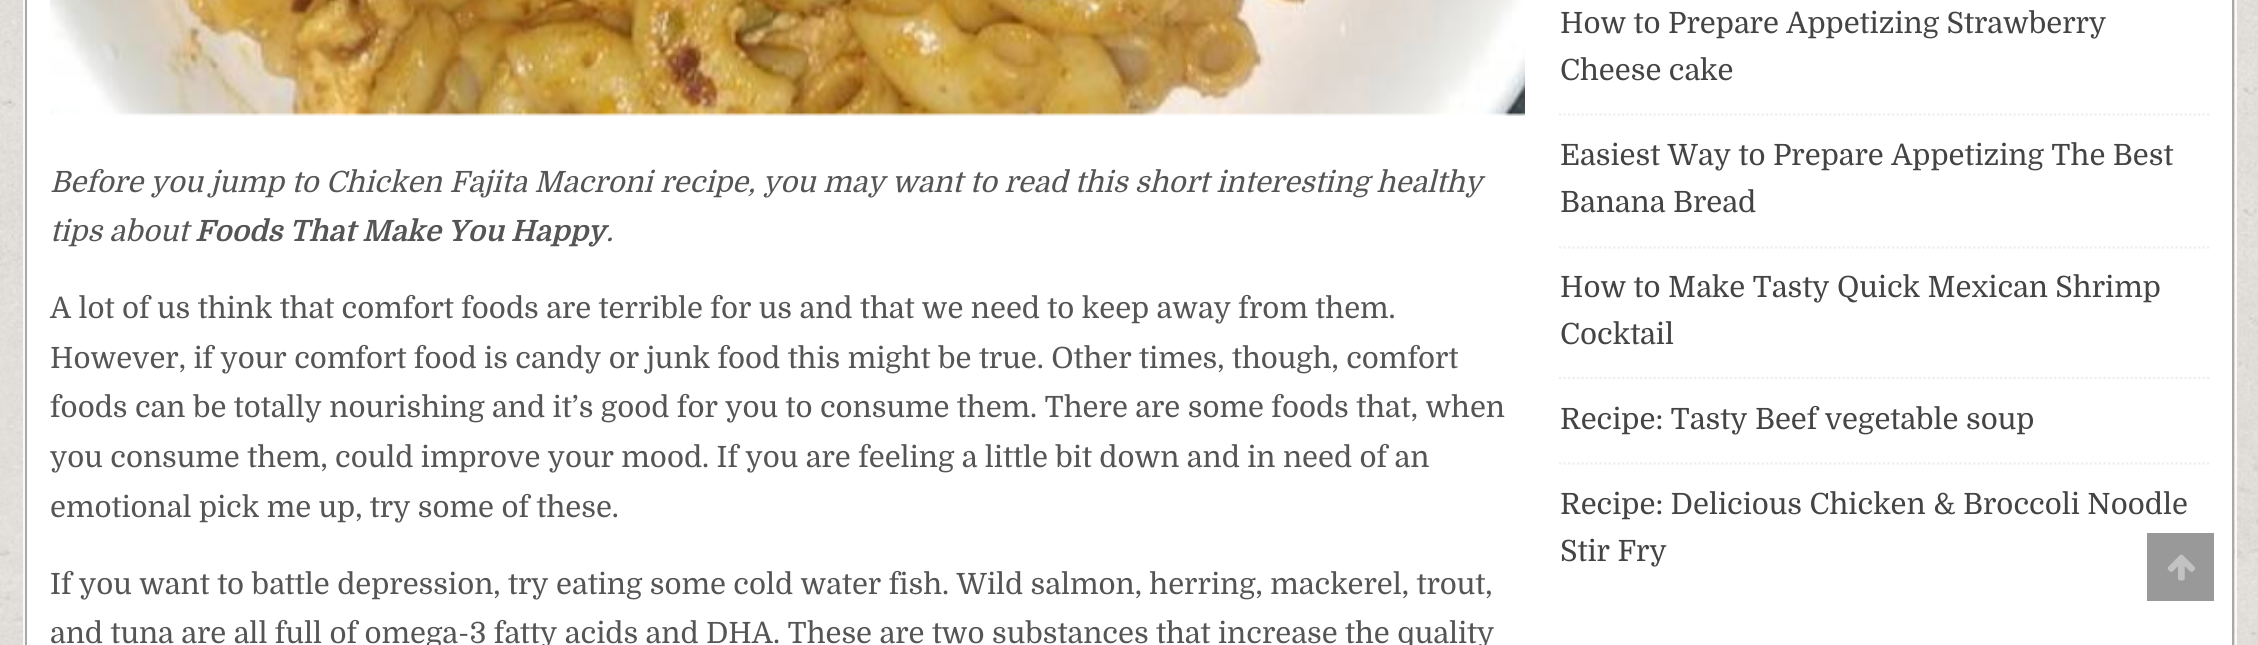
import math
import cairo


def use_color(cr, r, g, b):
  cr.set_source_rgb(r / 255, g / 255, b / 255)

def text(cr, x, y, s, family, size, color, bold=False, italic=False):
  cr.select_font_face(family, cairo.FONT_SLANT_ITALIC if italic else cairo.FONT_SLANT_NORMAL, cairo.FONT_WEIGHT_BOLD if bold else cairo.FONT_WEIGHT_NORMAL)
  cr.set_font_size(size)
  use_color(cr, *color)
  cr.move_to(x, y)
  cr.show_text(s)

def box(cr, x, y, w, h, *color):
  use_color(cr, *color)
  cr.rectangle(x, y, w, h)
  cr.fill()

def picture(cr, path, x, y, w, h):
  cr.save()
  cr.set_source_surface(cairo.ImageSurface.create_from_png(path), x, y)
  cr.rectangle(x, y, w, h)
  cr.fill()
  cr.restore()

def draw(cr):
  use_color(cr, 255, 255, 255)
  cr.paint()
  picture(cr, "img_01.png", 0, 0, 2258, 645)
  cr.rectangle(24, -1, 2212, 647)
  use_color(cr, 249, 249, 249)
  cr.stroke()
  cr.rectangle(26, -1, 2207, 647)
  use_color(cr, 168, 168, 168)
  cr.stroke()
  box(cr, 27, 0, 2205, 645, 255, 255, 255)
  picture(cr, "img_02.png", 50, 0, 1475, 116)
  cr.new_path()
  cr.move_to(1559, 114.5)
  cr.line_to(2209.5, 114.5)
  use_color(cr, 238, 238, 238)
  cr.set_line_width(2.2)
  cr.set_dash([2.25, 2.25])
  cr.stroke()
  cr.new_path()
  cr.move_to(1559, 247.5)
  cr.line_to(2209.5, 247.5)
  cr.stroke()
  cr.new_path()
  cr.move_to(1559, 378)
  cr.line_to(2209.5, 378)
  cr.stroke()
  cr.new_path()
  cr.move_to(1559, 463.5)
  cr.line_to(2209.5, 463.5)
  cr.stroke()
  box(cr, 2147, 533, 67, 68, 153, 153, 153)
  picture(cr, "img_03.png", 2167, 554, 28, 27)
  text(cr, 50, 192, "Before you jump to Chicken Fajita Macroni recipe, you may want to read this short interesting healthy", "Domine", 29.25, (85, 85, 85), italic=True)
  text(cr, 50, 241, "tips about", "Domine", 29.25, (85, 85, 85), italic=True)
  text(cr, 195, 241, "Foods That Make You Happy", "Domine", 29.25, (85, 85, 85), bold=True, italic=True)
  text(cr, 606, 241, ".", "Domine", 29.25, (85, 85, 85), italic=True)
  text(cr, 50, 318, "A lot of us think that comfort foods are terrible for us and that we need to keep away from them.", "Domine", 29.25, (85, 85, 85))
  text(cr, 50, 368, "However, if your comfort food is candy or junk food this might be true. Other times, though, comfort", "Domine", 29.25, (85, 85, 85))
  text(cr, 50, 417, "foods can be totally nourishing and it’s good for you to consume them. There are some foods that, when", "Domine", 29.25, (85, 85, 85))
  text(cr, 50, 467, "you consume them, could improve your mood. If you are feeling a little bit down and in need of an", "Domine", 29.25, (85, 85, 85))
  text(cr, 50, 517, "emotional pick me up, try some of these.", "Domine", 29.25, (85, 85, 85))
  text(cr, 50, 594, "If you want to battle depression, try eating some cold water fish. Wild salmon, herring, mackerel, trout,", "Domine", 29.25, (85, 85, 85))
  text(cr, 50, 643, "and tuna are all full of omega-3 fatty acids and DHA. These are two substances that increase the quality", "Domine", 29.25, (85, 85, 85))
  text(cr, 1560, 33, "How to Prepare Appetizing Strawberry", "Domine", 29.25, (68, 68, 68))
  text(cr, 1560, 80, "Cheese cake", "Domine", 29.25, (68, 68, 68))
  text(cr, 1560, 165, "Easiest Way to Prepare Appetizing The Best", "Domine", 29.25, (68, 68, 68))
  text(cr, 1560, 212, "Banana Bread", "Domine", 29.25, (68, 68, 68))
  text(cr, 1560, 297, "How to Make Tasty Quick Mexican Shrimp", "Domine", 29.25, (68, 68, 68))
  text(cr, 1560, 344, "Cocktail", "Domine", 29.25, (68, 68, 68))
  text(cr, 1560, 429, "Recipe: Tasty Beef vegetable soup", "Domine", 29.25, (68, 68, 68))
  text(cr, 1560, 514, "Recipe: Delicious Chicken & Broccoli Noodle", "Domine", 29.25, (68, 68, 68))
  text(cr, 1560, 561, "Stir Fry", "Domine", 29.25, (68, 68, 68))


surface = cairo.ImageSurface(cairo.FORMAT_RGB24, 2258, 645)
cr = cairo.Context(surface)
options = cairo.FontOptions()
options.set_hint_metrics(cairo.HINT_METRICS_OFF)
options.set_hint_style(cairo.HINT_STYLE_NONE)
cr.set_font_options(options)
cr.set_miter_limit(4)
draw(cr)
surface.write_to_png("out.png")
